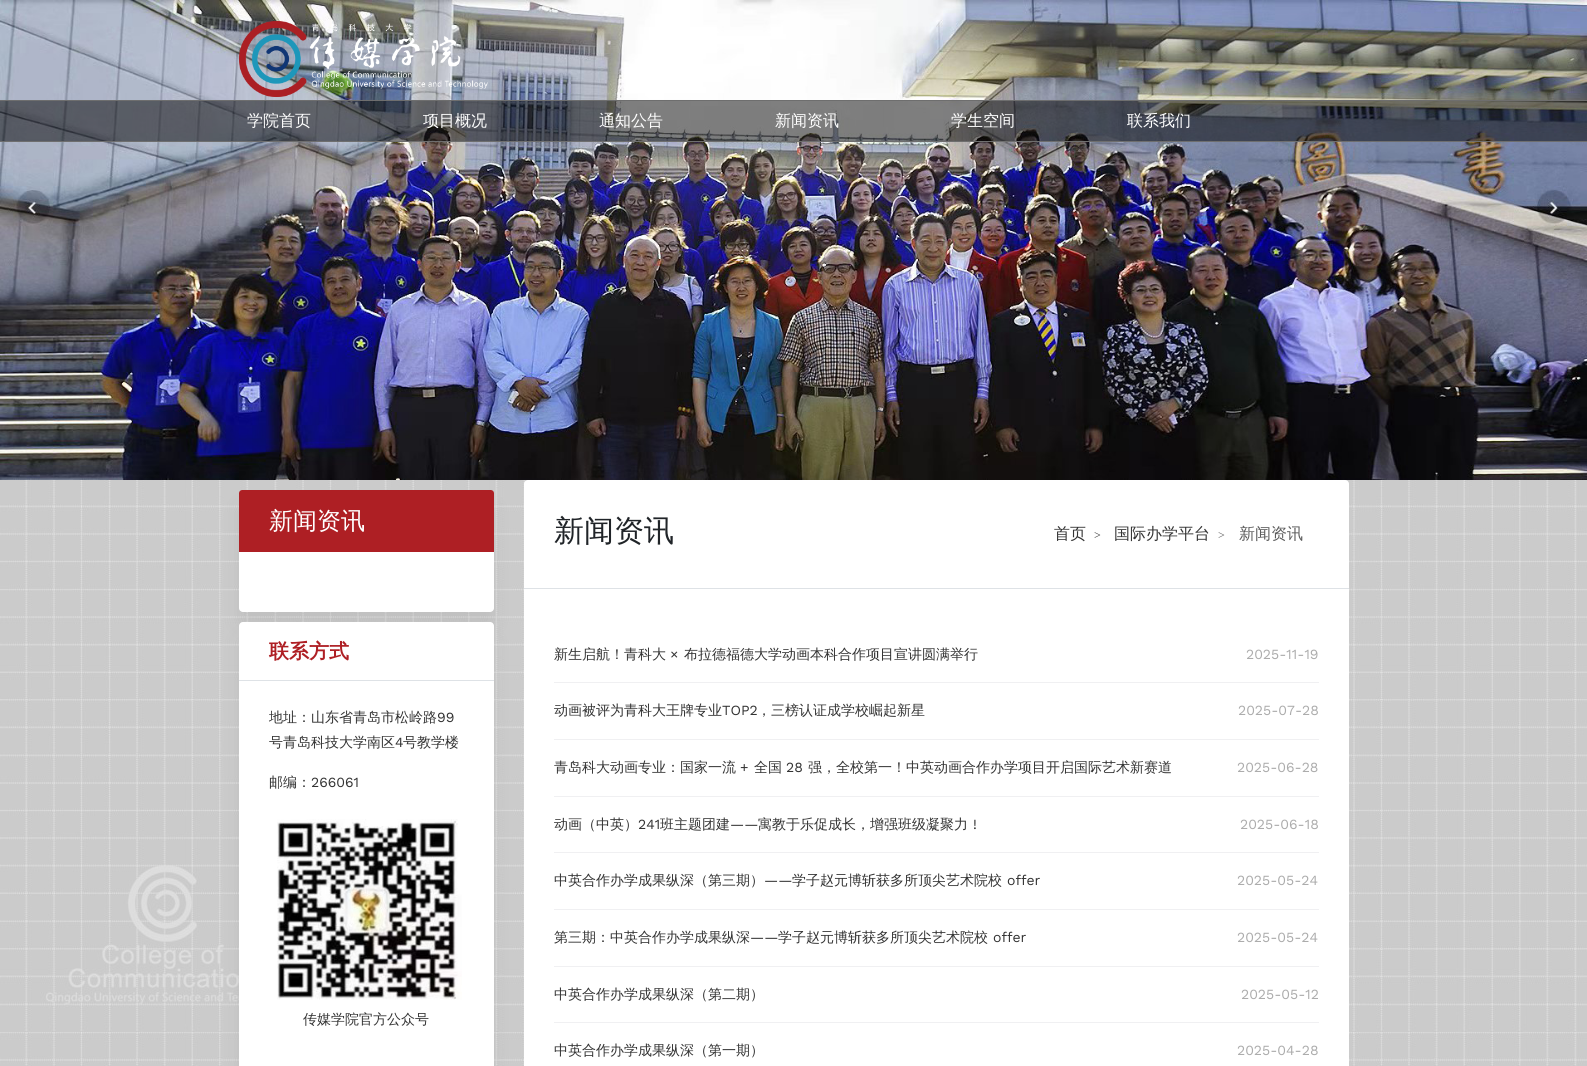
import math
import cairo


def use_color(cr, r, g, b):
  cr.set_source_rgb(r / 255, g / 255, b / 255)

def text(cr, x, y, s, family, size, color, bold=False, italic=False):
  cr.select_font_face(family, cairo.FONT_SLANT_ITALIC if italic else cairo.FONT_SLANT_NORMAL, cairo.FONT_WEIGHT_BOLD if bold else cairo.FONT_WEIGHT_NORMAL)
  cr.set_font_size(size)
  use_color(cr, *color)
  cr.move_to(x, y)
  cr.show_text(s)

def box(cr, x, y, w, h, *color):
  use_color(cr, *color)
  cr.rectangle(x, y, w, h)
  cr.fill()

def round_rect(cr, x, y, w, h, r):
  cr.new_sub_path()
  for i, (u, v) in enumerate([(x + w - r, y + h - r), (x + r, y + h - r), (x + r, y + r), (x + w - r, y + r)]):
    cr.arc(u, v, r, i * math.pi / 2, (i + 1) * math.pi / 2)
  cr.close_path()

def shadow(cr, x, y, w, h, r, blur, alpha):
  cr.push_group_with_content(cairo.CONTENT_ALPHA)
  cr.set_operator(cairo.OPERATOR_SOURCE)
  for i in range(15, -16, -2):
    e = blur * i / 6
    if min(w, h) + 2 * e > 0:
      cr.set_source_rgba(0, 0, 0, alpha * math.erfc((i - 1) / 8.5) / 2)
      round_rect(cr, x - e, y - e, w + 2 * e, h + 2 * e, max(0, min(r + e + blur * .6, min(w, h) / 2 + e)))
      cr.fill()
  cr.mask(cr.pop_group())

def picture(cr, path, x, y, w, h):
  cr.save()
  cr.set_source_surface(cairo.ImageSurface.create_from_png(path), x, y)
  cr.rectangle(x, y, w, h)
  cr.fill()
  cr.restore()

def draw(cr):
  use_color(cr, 255, 255, 255)
  cr.paint()
  picture(cr, "img_01.png", 0, 0, 1587, 480)
  picture(cr, "img_02.png", 239, 21, 249, 76)
  cr.set_source_rgba(0, 0, 0, 0.5)
  cr.rectangle(0, 101, 1587, 40)
  cr.fill()
  box(cr, 0, 100, 1587, 1, 110, 110, 110)
  box(cr, 0, 141, 1587, 1, 110, 110, 110)
  picture(cr, "img_03.png", 0, 480, 1587, 586)
  use_color(cr, 0, 0, 0)
  shadow(cr, 239, 505, 255, 122, 4, 10, 0.06)
  use_color(cr, 255, 255, 255)
  round_rect(cr, 239, 490, 255, 122, 4)
  cr.fill()
  use_color(cr, 174, 31, 36)
  cr.new_path()
  cr.move_to(242, 490)
  cr.line_to(491, 490)
  cr.curve_to(492.5, 490, 494, 491.5, 494, 493)
  cr.line_to(494, 552)
  cr.line_to(239, 552)
  cr.line_to(239, 493)
  cr.curve_to(239, 491.5, 240.5, 490, 242, 490)
  cr.close_path()
  cr.fill()
  use_color(cr, 0, 0, 0)
  shadow(cr, 239, 637, 255, 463, 4, 10, 0.06)
  use_color(cr, 255, 255, 255)
  round_rect(cr, 239, 622, 255, 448, 4)
  cr.fill()
  box(cr, 239, 680, 255, 1, 222, 226, 230)
  picture(cr, "img_04.png", 277, 819, 185, 181)
  use_color(cr, 255, 255, 255)
  round_rect(cr, 524, 480, 825, 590, 4)
  cr.fill()
  box(cr, 524, 588, 825, 1, 222, 226, 230)
  box(cr, 554, 682, 765, 1, 240, 240, 242)
  box(cr, 554, 739, 765, 1, 240, 240, 242)
  box(cr, 554, 796, 765, 1, 240, 240, 242)
  box(cr, 554, 852, 765, 1, 240, 240, 242)
  box(cr, 554, 909, 765, 1, 240, 240, 242)
  box(cr, 554, 966, 765, 1, 240, 240, 242)
  box(cr, 554, 1022, 765, 1, 240, 240, 242)
  text(cr, 247, 126, "学院首页", "WenQuanYi Zen Hei Medium", 16, (255, 255, 255))
  text(cr, 423, 126, "项目概况", "WenQuanYi Zen Hei Medium", 16, (255, 255, 255))
  text(cr, 599, 126, "通知公告", "WenQuanYi Zen Hei Medium", 16, (255, 255, 255))
  text(cr, 775, 126, "新闻资讯", "WenQuanYi Zen Hei Medium", 16, (255, 255, 255))
  text(cr, 951, 126, "学生空间", "WenQuanYi Zen Hei Medium", 16, (255, 255, 255))
  text(cr, 1127, 126, "联系我们", "WenQuanYi Zen Hei Medium", 16, (255, 255, 255))
  text(cr, 269, 529, "新闻资讯", "WenQuanYi Zen Hei Medium", 24, (255, 255, 255))
  text(cr, 269, 658, "联系方式", "WenQuanYi Zen Hei", 20, (174, 31, 36), bold=True)
  text(cr, 269, 722, "地址：山东省青岛市松岭路", "WenQuanYi Zen Hei Medium", 14, (51, 51, 51))
  text(cr, 437, 722, "99", "Work Sans", 14, (51, 51, 51))
  text(cr, 269, 747, "号青岛科技大学南区", "WenQuanYi Zen Hei Medium", 14, (51, 51, 51))
  text(cr, 395, 747, "4", "Work Sans", 14, (51, 51, 51))
  text(cr, 403, 747, "号教学楼", "WenQuanYi Zen Hei Medium", 14, (51, 51, 51))
  text(cr, 269, 787, "邮编：", "WenQuanYi Zen Hei Medium", 14, (51, 51, 51))
  text(cr, 311, 787, "266061", "Work Sans", 14, (51, 51, 51))
  text(cr, 303, 1024, "传媒学院官方公众号", "WenQuanYi Zen Hei Medium", 14, (51, 51, 51))
  text(cr, 554, 541, "新闻资讯", "WenQuanYi Zen Hei Medium", 30, (32, 36, 40))
  text(cr, 1054, 539, "首页", "WenQuanYi Zen Hei Medium", 16, (51, 51, 51))
  text(cr, 1094, 539, ">", "Liberation Serif", 12, (51, 51, 51))
  text(cr, 1114, 539, "国际办学平台", "WenQuanYi Zen Hei Medium", 16, (51, 51, 51))
  text(cr, 1218, 539, ">", "Liberation Serif", 12, (92, 92, 92))
  text(cr, 1239, 539, "新闻资讯", "WenQuanYi Zen Hei Medium", 16, (92, 92, 92))
  text(cr, 554, 659, "新生启航！青科大", "WenQuanYi Zen Hei Medium", 14, (51, 51, 51))
  text(cr, 670, 659, "×", "Work Sans", 14, (51, 51, 51))
  text(cr, 684, 659, "布拉德福德大学动画本科合作项目宣讲圆满举行", "WenQuanYi Zen Hei Medium", 14, (51, 51, 51))
  text(cr, 1246, 659, "2025-11-19", "Work Sans", 14, (172, 172, 172))
  text(cr, 554, 715, "动画被评为青科大王牌专业", "WenQuanYi Zen Hei Medium", 14, (51, 51, 51))
  text(cr, 722, 715, "TOP2", "Work Sans", 14, (51, 51, 51))
  text(cr, 757, 715, "，三榜认证成学校崛起新星", "WenQuanYi Zen Hei Medium", 14, (51, 51, 51))
  text(cr, 1238, 715, "2025-07-28", "Work Sans", 14, (172, 172, 172))
  text(cr, 554, 772, "青岛科大动画专业：国家一流", "WenQuanYi Zen Hei Medium", 14, (51, 51, 51))
  text(cr, 740, 772, "+", "Work Sans", 14, (51, 51, 51))
  text(cr, 754, 772, "全国", "WenQuanYi Zen Hei Medium", 14, (51, 51, 51))
  text(cr, 786, 772, "28", "Work Sans", 14, (51, 51, 51))
  text(cr, 808, 772, "强，全校第一！中英动画合作办学项目开启国际艺术新赛道", "WenQuanYi Zen Hei Medium", 14, (51, 51, 51))
  text(cr, 1237, 772, "2025-06-28", "Work Sans", 14, (172, 172, 172))
  text(cr, 554, 829, "动画（中英）", "WenQuanYi Zen Hei Medium", 14, (51, 51, 51))
  text(cr, 638, 829, "241", "Work Sans", 14, (51, 51, 51))
  text(cr, 660, 829, "班主题团建", "WenQuanYi Zen Hei Medium", 14, (51, 51, 51))
  text(cr, 730, 829, "——", "Work Sans", 14, (51, 51, 51))
  text(cr, 758, 829, "寓教于乐促成长，增强班级凝聚力", "WenQuanYi Zen Hei Medium", 14, (51, 51, 51))
  text(cr, 973, 829, "!", "Work Sans", 14, (51, 51, 51))
  text(cr, 1240, 829, "2025-06-18", "Work Sans", 14, (172, 172, 172))
  text(cr, 554, 885, "中英合作办学成果纵深（第三期）", "WenQuanYi Zen Hei Medium", 14, (51, 51, 51))
  text(cr, 764, 885, "——", "Work Sans", 14, (51, 51, 51))
  text(cr, 792, 885, "学子赵元博斩获多所顶尖艺术院校", "WenQuanYi Zen Hei Medium", 14, (51, 51, 51))
  text(cr, 1007, 885, "offer", "Work Sans", 14, (51, 51, 51))
  text(cr, 1237, 885, "2025-05-24", "Work Sans", 14, (172, 172, 172))
  text(cr, 554, 942, "第三期：中英合作办学成果纵深", "WenQuanYi Zen Hei Medium", 14, (51, 51, 51))
  text(cr, 750, 942, "——", "Work Sans", 14, (51, 51, 51))
  text(cr, 778, 942, "学子赵元博斩获多所顶尖艺术院校", "WenQuanYi Zen Hei Medium", 14, (51, 51, 51))
  text(cr, 993, 942, "offer", "Work Sans", 14, (51, 51, 51))
  text(cr, 1237, 942, "2025-05-24", "Work Sans", 14, (172, 172, 172))
  text(cr, 554, 999, "中英合作办学成果纵深（第二期）", "WenQuanYi Zen Hei Medium", 14, (51, 51, 51))
  text(cr, 1241, 999, "2025-05-12", "Work Sans", 14, (172, 172, 172))
  text(cr, 554, 1055, "中英合作办学成果纵深（第一期）", "WenQuanYi Zen Hei Medium", 14, (51, 51, 51))
  text(cr, 1237, 1055, "2025-04-28", "Work Sans", 14, (172, 172, 172))


surface = cairo.ImageSurface(cairo.FORMAT_RGB24, 1587, 1066)
cr = cairo.Context(surface)
options = cairo.FontOptions()
options.set_hint_metrics(cairo.HINT_METRICS_OFF)
options.set_hint_style(cairo.HINT_STYLE_NONE)
cr.set_font_options(options)
cr.set_miter_limit(4)
draw(cr)
surface.write_to_png("out.png")
